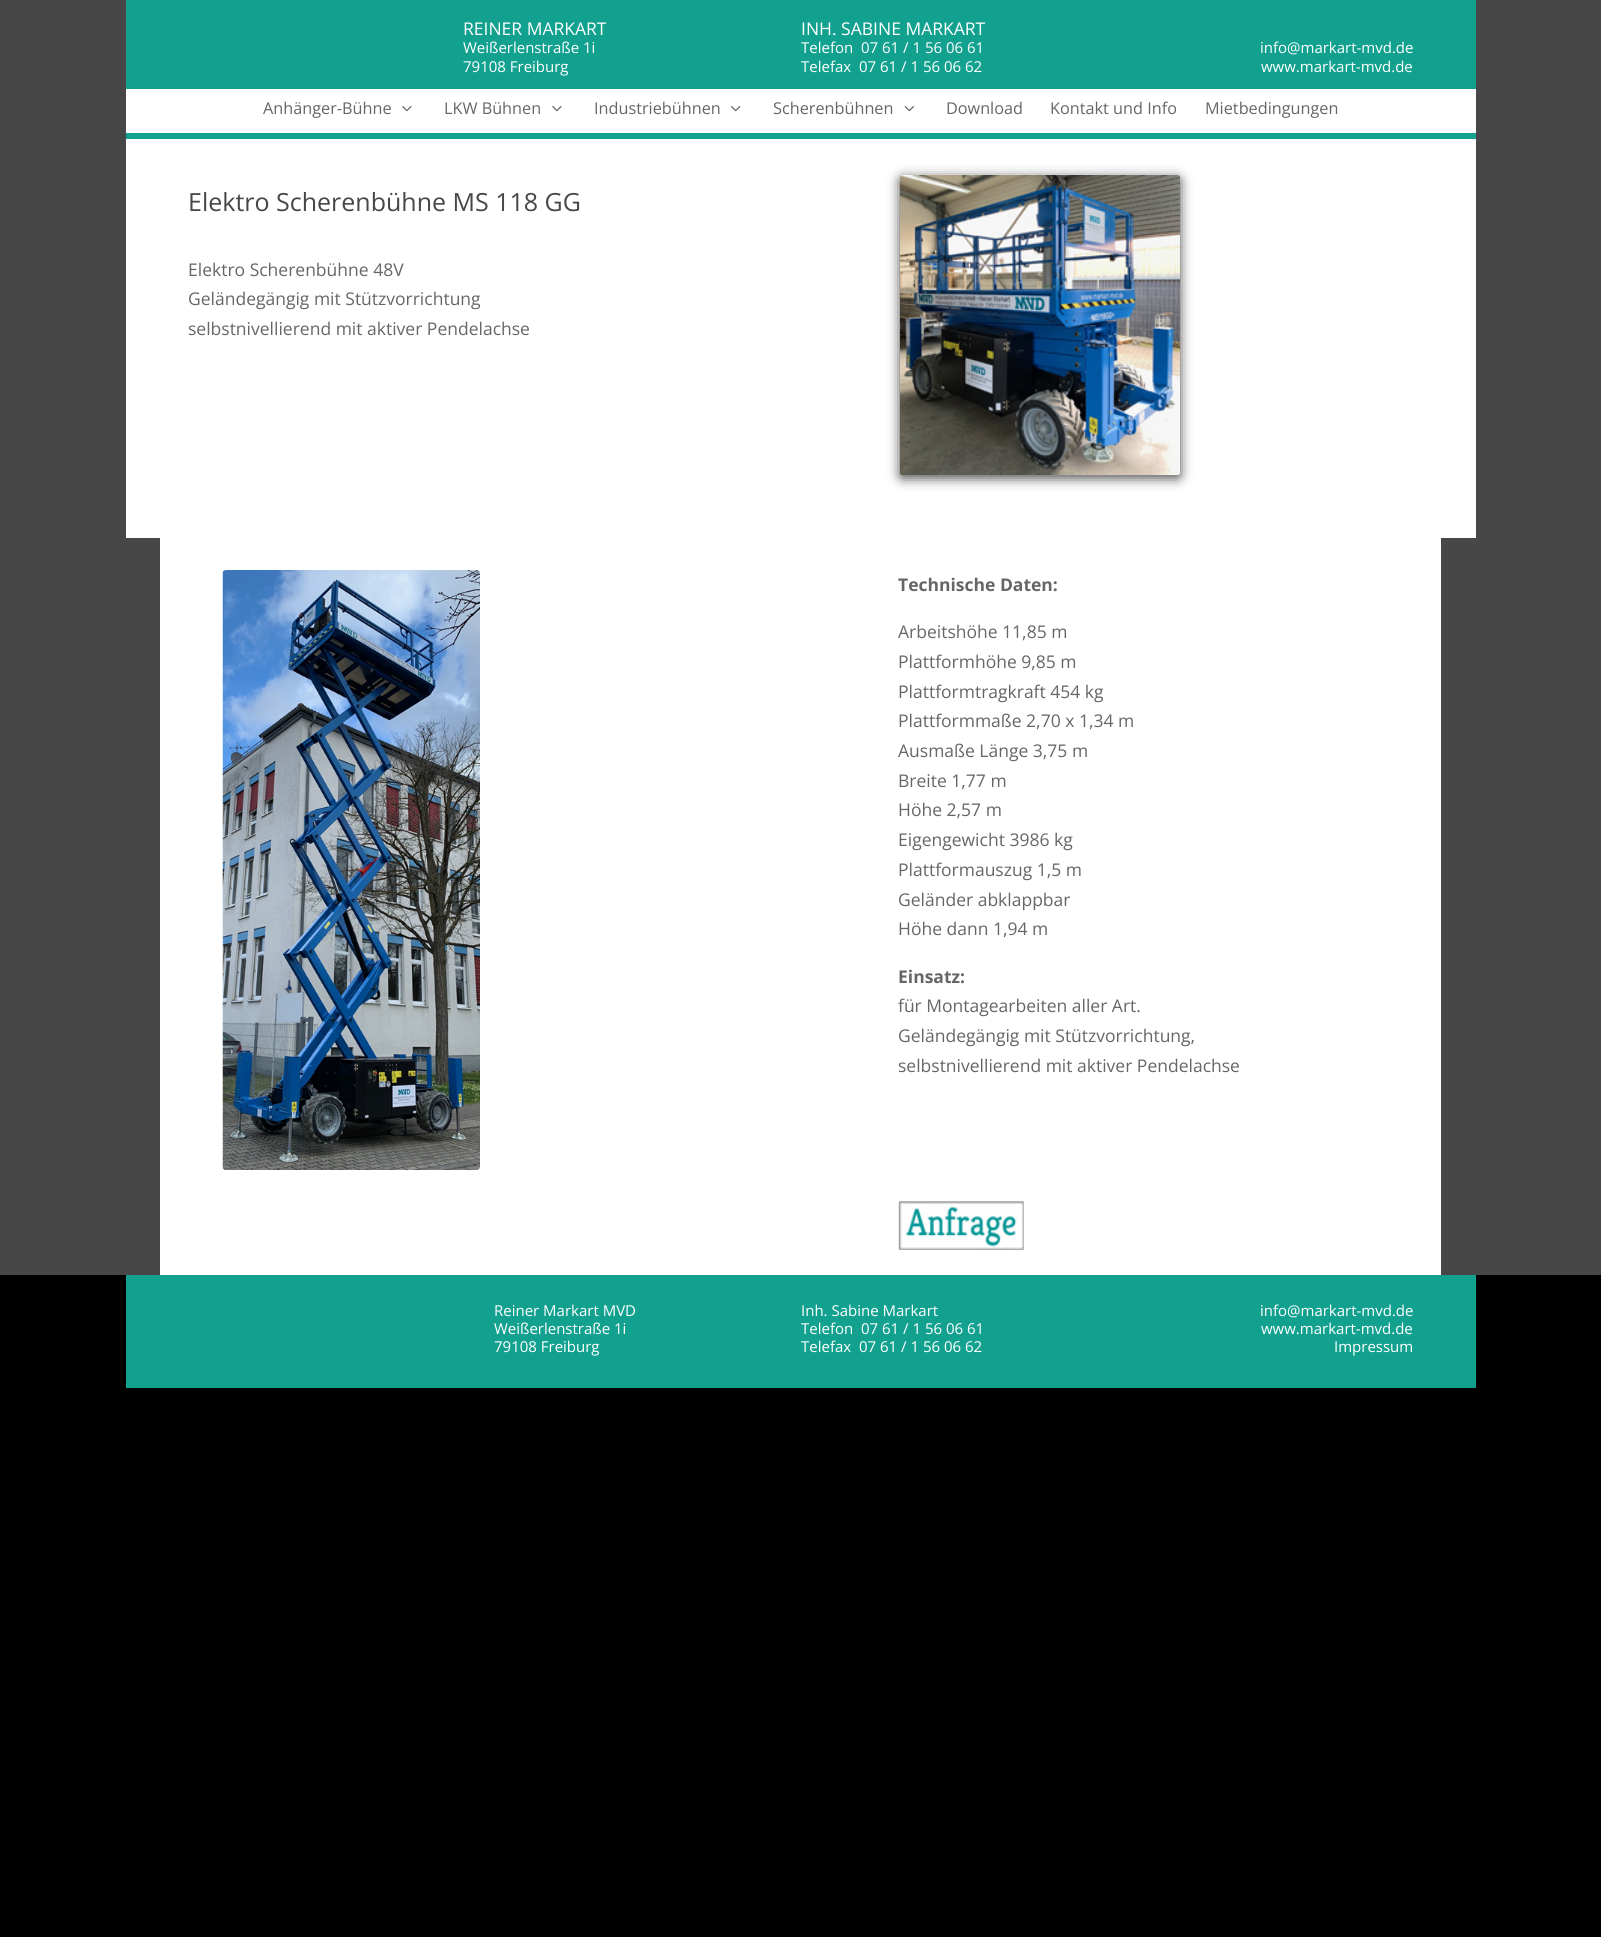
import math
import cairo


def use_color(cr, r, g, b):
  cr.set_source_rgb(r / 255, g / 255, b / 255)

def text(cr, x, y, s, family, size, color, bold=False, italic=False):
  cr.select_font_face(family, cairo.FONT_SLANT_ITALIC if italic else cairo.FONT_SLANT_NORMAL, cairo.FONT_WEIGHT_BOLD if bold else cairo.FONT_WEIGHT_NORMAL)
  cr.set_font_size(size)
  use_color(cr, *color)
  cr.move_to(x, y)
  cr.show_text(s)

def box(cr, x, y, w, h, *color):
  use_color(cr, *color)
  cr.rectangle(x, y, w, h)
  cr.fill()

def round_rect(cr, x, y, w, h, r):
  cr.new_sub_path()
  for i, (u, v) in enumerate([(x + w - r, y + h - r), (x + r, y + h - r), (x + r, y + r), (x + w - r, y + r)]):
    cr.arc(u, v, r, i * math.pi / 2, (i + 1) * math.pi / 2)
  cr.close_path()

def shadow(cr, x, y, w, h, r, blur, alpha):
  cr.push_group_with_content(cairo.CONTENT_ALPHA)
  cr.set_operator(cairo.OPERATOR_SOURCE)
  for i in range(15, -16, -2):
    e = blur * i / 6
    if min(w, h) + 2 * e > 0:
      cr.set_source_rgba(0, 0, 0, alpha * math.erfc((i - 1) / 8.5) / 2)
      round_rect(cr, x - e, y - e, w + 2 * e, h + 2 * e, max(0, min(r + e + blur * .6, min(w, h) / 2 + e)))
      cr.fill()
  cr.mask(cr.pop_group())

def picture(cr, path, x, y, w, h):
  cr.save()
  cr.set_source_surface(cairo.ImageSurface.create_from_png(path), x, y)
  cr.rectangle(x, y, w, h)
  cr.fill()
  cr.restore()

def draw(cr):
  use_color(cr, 0, 0, 0)
  cr.paint()
  box(cr, 0, 0, 1601, 1275, 71, 71, 71)
  box(cr, 126, 89, 1350, 44, 255, 255, 255)
  box(cr, 126, 0, 1350, 89, 18, 161, 143)
  box(cr, 126, 133, 1350, 6, 18, 161, 143)
  picture(cr, "img_01.png", 402, 106, 10, 6)
  picture(cr, "img_01.png", 552, 106, 10, 6)
  picture(cr, "img_02.png", 731, 106, 10, 6)
  picture(cr, "img_03.png", 904, 106, 10, 6)
  box(cr, 126, 139, 1350, 399, 255, 255, 255)
  use_color(cr, 71, 71, 71)
  shadow(cr, 900, 178, 280, 300, 2.5, 6, 1)
  picture(cr, "img_04.png", 900, 175, 280, 300)
  box(cr, 160, 538, 1281, 737, 255, 255, 255)
  picture(cr, "img_05.png", 222, 570, 258, 600)
  picture(cr, "img_06.png", 898, 1201, 126, 49)
  box(cr, 126, 1275, 1350, 113, 18, 161, 143)
  text(cr, 463, 35, "REINER MARKART", "Open Sans", 17.5, (255, 255, 255))
  text(cr, 463, 53, "Weißerlenstraße 1i", "Open Sans", 15, (255, 255, 255))
  text(cr, 463, 72, "79108 Freiburg", "Open Sans", 15, (255, 255, 255))
  text(cr, 801, 35, "INH. SABINE MARKART", "Open Sans", 17.5, (255, 255, 255))
  text(cr, 801, 53, "Telefon  07 61 / 1 56 06 61", "Open Sans", 15, (255, 255, 255))
  text(cr, 801, 72, "Telefax  07 61 / 1 56 06 62", "Open Sans", 15, (255, 255, 255))
  text(cr, 1260, 53, "info@markart-mvd.de", "Open Sans", 15, (255, 255, 255))
  text(cr, 1261, 72, "www.markart-mvd.de", "Open Sans", 15, (255, 255, 255))
  text(cr, 263, 114, "Anhänger-Bühne", "Open Sans", 16.25, (102, 102, 102))
  text(cr, 444, 114, "LKW Bühnen", "Open Sans", 16.25, (102, 102, 102))
  text(cr, 594, 114, "Industriebühnen", "Open Sans", 16.25, (102, 102, 102))
  text(cr, 773, 114, "Scherenbühnen", "Open Sans", 16.25, (102, 102, 102))
  text(cr, 946, 114, "Download", "Open Sans", 16.25, (102, 102, 102))
  text(cr, 1050, 114, "Kontakt und Info", "Open Sans", 16.25, (102, 102, 102))
  text(cr, 1205, 114, "Mietbedingungen", "Open Sans", 16.25, (102, 102, 102))
  text(cr, 188, 211, "Elektro Scherenbühne MS 118 GG", "Open Sans", 25, (71, 71, 71))
  text(cr, 188, 276, "Elektro Scherenbühne 48V", "Open Sans", 17.5, (102, 102, 102))
  text(cr, 188, 305, "Geländegängig mit Stützvorrichtung", "Open Sans", 17.5, (102, 102, 102))
  text(cr, 188, 335, "selbstnivellierend mit aktiver Pendelachse", "Open Sans", 17.5, (102, 102, 102))
  text(cr, 898, 591, "Technische Daten:", "Open Sans", 17.5, (102, 102, 102), bold=True)
  text(cr, 898, 638, "Arbeitshöhe 11,85 m", "Open Sans", 17.5, (102, 102, 102))
  text(cr, 898, 668, "Plattformhöhe 9,85 m", "Open Sans", 17.5, (102, 102, 102))
  text(cr, 898, 698, "Plattformtragkraft 454 kg", "Open Sans", 17.5, (102, 102, 102))
  text(cr, 898, 727, "Plattformmaße 2,70 x 1,34 m", "Open Sans", 17.5, (102, 102, 102))
  text(cr, 898, 757, "Ausmaße Länge 3,75 m", "Open Sans", 17.5, (102, 102, 102))
  text(cr, 898, 787, "Breite 1,77 m", "Open Sans", 17.5, (102, 102, 102))
  text(cr, 898, 816, "Höhe 2,57 m", "Open Sans", 17.5, (102, 102, 102))
  text(cr, 898, 846, "Eigengewicht 3986 kg", "Open Sans", 17.5, (102, 102, 102))
  text(cr, 898, 876, "Plattformauszug 1,5 m", "Open Sans", 17.5, (102, 102, 102))
  text(cr, 898, 906, "Geländer abklappbar", "Open Sans", 17.5, (102, 102, 102))
  text(cr, 898, 935, "Höhe dann 1,94 m", "Open Sans", 17.5, (102, 102, 102))
  text(cr, 898, 983, "Einsatz:", "Open Sans", 17.5, (102, 102, 102), bold=True)
  text(cr, 898, 1012, "für Montagearbeiten aller Art.", "Open Sans", 17.5, (102, 102, 102))
  text(cr, 898, 1042, "Geländegängig mit Stützvorrichtung,", "Open Sans", 17.5, (102, 102, 102))
  text(cr, 898, 1072, "selbstnivellierend mit aktiver Pendelachse", "Open Sans", 17.5, (102, 102, 102))
  text(cr, 494, 1316, "Reiner Markart MVD", "Open Sans", 15, (255, 255, 255))
  text(cr, 494, 1334, "Weißerlenstraße 1i", "Open Sans", 15, (255, 255, 255))
  text(cr, 494, 1352, "79108 Freiburg", "Open Sans", 15, (255, 255, 255))
  text(cr, 801, 1316, "Inh. Sabine Markart", "Open Sans", 15, (255, 255, 255))
  text(cr, 801, 1334, "Telefon  07 61 / 1 56 06 61", "Open Sans", 15, (255, 255, 255))
  text(cr, 801, 1352, "Telefax  07 61 / 1 56 06 62", "Open Sans", 15, (255, 255, 255))
  text(cr, 1260, 1316, "info@markart-mvd.de", "Open Sans", 15, (255, 255, 255))
  text(cr, 1261, 1334, "www.markart-mvd.de", "Open Sans", 15, (255, 255, 255))
  text(cr, 1334, 1352, "Impressum", "Open Sans", 15, (255, 255, 255))


surface = cairo.ImageSurface(cairo.FORMAT_RGB24, 1601, 1937)
cr = cairo.Context(surface)
options = cairo.FontOptions()
options.set_hint_metrics(cairo.HINT_METRICS_OFF)
options.set_hint_style(cairo.HINT_STYLE_NONE)
cr.set_font_options(options)
cr.set_miter_limit(4)
draw(cr)
surface.write_to_png("out.png")
